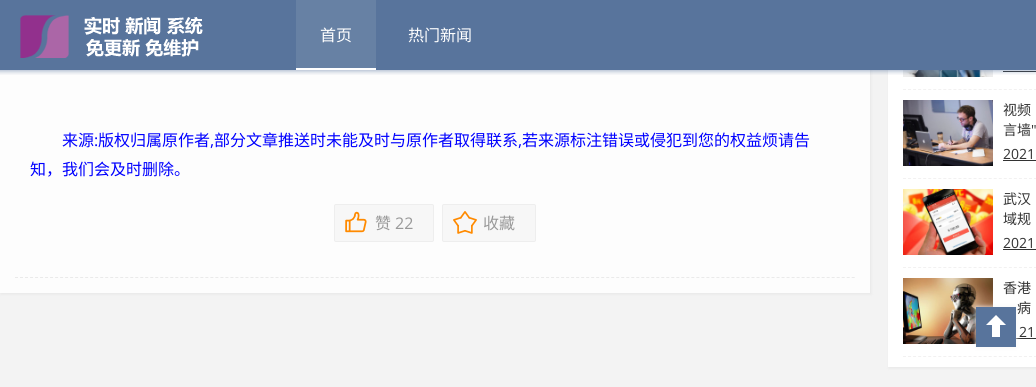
import math
import cairo


def use_color(cr, r, g, b):
  cr.set_source_rgb(r / 255, g / 255, b / 255)

def text(cr, x, y, s, family, size, color, bold=False, italic=False):
  cr.select_font_face(family, cairo.FONT_SLANT_ITALIC if italic else cairo.FONT_SLANT_NORMAL, cairo.FONT_WEIGHT_BOLD if bold else cairo.FONT_WEIGHT_NORMAL)
  cr.set_font_size(size)
  use_color(cr, *color)
  cr.move_to(x, y)
  cr.show_text(s)

def box(cr, x, y, w, h, *color):
  use_color(cr, *color)
  cr.rectangle(x, y, w, h)
  cr.fill()

def round_rect(cr, x, y, w, h, r):
  cr.new_sub_path()
  for i, (u, v) in enumerate([(x + w - r, y + h - r), (x + r, y + h - r), (x + r, y + r), (x + w - r, y + r)]):
    cr.arc(u, v, r, i * math.pi / 2, (i + 1) * math.pi / 2)
  cr.close_path()

def shadow(cr, x, y, w, h, r, blur, alpha):
  cr.push_group_with_content(cairo.CONTENT_ALPHA)
  cr.set_operator(cairo.OPERATOR_SOURCE)
  for i in range(15, -16, -2):
    e = blur * i / 6
    if min(w, h) + 2 * e > 0:
      cr.set_source_rgba(0, 0, 0, alpha * math.erfc((i - 1) / 8.5) / 2)
      round_rect(cr, x - e, y - e, w + 2 * e, h + 2 * e, max(0, min(r + e + blur * .6, min(w, h) / 2 + e)))
      cr.fill()
  cr.mask(cr.pop_group())

def picture(cr, path, x, y, w, h):
  cr.save()
  cr.set_source_surface(cairo.ImageSurface.create_from_png(path), x, y)
  cr.rectangle(x, y, w, h)
  cr.fill()
  cr.restore()

def draw(cr):
  use_color(cr, 243, 243, 243)
  cr.paint()
  use_color(cr, 230, 230, 230)
  shadow(cr, 1, -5, 870, 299, 0, 1.5, 1)
  box(cr, 0, 70, 870, 223, 253, 253, 253)
  use_color(cr, 230, 230, 230)
  shadow(cr, 889, -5, 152, 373, 0, 1.5, 1)
  box(cr, 888, 70, 148, 297, 255, 255, 255)
  picture(cr, "img_05.png", 903, 70, 90, 7)
  box(cr, 1003, 71, 33, 1, 51, 51, 51)
  picture(cr, "img_01.png", 0, 0, 1036, 75)
  picture(cr, "img_02.png", 20, 15, 183, 43)
  box(cr, 296, 0, 80, 68, 103, 129, 164)
  box(cr, 296, 68, 80, 2, 255, 255, 255)
  cr.new_path()
  cr.move_to(15, 277.5)
  cr.line_to(855, 277.5)
  use_color(cr, 234, 234, 234)
  cr.set_line_width(1)
  cr.set_dash([3, 2.01])
  cr.stroke()
  use_color(cr, 247, 247, 247)
  round_rect(cr, 334, 204, 100, 38, 2)
  cr.fill()
  picture(cr, "img_03.png", 345, 211, 22, 22)
  round_rect(cr, 334.5, 204.5, 99, 37, 1.5)
  use_color(cr, 238, 238, 238)
  cr.set_dash([])
  cr.stroke()
  use_color(cr, 247, 247, 247)
  round_rect(cr, 442, 204, 94, 38, 2)
  cr.fill()
  picture(cr, "img_04.png", 453, 211, 24, 23)
  round_rect(cr, 442.5, 204.5, 93, 37, 1.5)
  use_color(cr, 238, 238, 238)
  cr.stroke()
  cr.new_path()
  cr.move_to(903, 89.5)
  cr.line_to(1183, 89.5)
  use_color(cr, 242, 241, 241)
  cr.set_dash([3, 2.04])
  cr.stroke()
  cr.new_path()
  cr.move_to(903, 178.5)
  cr.line_to(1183, 178.5)
  cr.stroke()
  picture(cr, "img_06.png", 903, 100, 90, 66)
  box(cr, 1003, 160, 33, 1, 51, 51, 51)
  cr.new_path()
  cr.move_to(903, 267.5)
  cr.line_to(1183, 267.5)
  use_color(cr, 242, 241, 241)
  cr.stroke()
  picture(cr, "img_07.png", 903, 189, 90, 66)
  box(cr, 1003, 249, 33, 1, 51, 51, 51)
  cr.new_path()
  cr.move_to(903, 356.5)
  cr.line_to(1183, 356.5)
  use_color(cr, 242, 241, 241)
  cr.stroke()
  picture(cr, "img_08.png", 903, 278, 90, 66)
  box(cr, 1016, 338, 20, 1, 51, 51, 51)
  use_color(cr, 245, 245, 245)
  shadow(cr, 976, 307, 40, 40, 0, 2.5, 1)
  box(cr, 976, 307, 40, 40, 88, 116, 156)
  use_color(cr, 255, 255, 255)
  cr.new_path()
  cr.move_to(1006, 325)
  cr.line_to(986, 325)
  cr.line_to(996, 315)
  cr.close_path()
  cr.fill()
  box(cr, 992, 325, 8, 12, 255, 255, 255)
  text(cr, 320, 41, "首页", "Noto Sans CJK SC", 16, (255, 255, 255))
  text(cr, 408, 41, "热门新闻", "Noto Sans CJK SC", 16, (255, 255, 255))
  text(cr, 62, 146, "来源", "Noto Sans CJK SC", 16, (0, 0, 255))
  text(cr, 94, 146, ":", "Open Sans", 16, (0, 0, 255))
  text(cr, 98, 146, "版权归属原作者", "Noto Sans CJK SC", 16, (0, 0, 255))
  text(cr, 210, 146, ",", "Open Sans", 16, (0, 0, 255))
  text(cr, 214, 146, "部分文章推送时未能及时与原作者取得联系", "Noto Sans CJK SC", 16, (0, 0, 255))
  text(cr, 518, 146, ",", "Open Sans", 16, (0, 0, 255))
  text(cr, 522, 146, "若来源标注错误或侵犯到您的权益烦请告", "Noto Sans CJK SC", 16, (0, 0, 255))
  text(cr, 30, 175, "知，我们会及时删除。", "Noto Sans CJK SC", 16, (0, 0, 255))
  text(cr, 375, 229, "赞", "Noto Sans CJK SC", 16, (153, 153, 153))
  text(cr, 395, 229, "22", "Open Sans", 16, (153, 153, 153))
  text(cr, 483, 229, "收藏", "Noto Sans CJK SC", 16, (153, 153, 153))
  text(cr, 1003, 115, "视频", "Noto Sans CJK SC", 14, (51, 51, 51))
  text(cr, 1003, 135, "言墙", "Noto Sans CJK SC", 14, (51, 51, 51))
  text(cr, 1031, 135, "\"", "Open Sans", 14, (51, 51, 51))
  text(cr, 1003, 159, "2021", "Open Sans", 14, (51, 51, 51))
  text(cr, 1003, 204, "武汉", "Noto Sans CJK SC", 14, (51, 51, 51))
  text(cr, 1003, 224, "域规", "Noto Sans CJK SC", 14, (51, 51, 51))
  text(cr, 1003, 248, "2021", "Open Sans", 14, (51, 51, 51))
  text(cr, 1003, 293, "香港", "Noto Sans CJK SC", 14, (51, 51, 51))
  text(cr, 1017, 313, "病", "Noto Sans CJK SC", 14, (51, 51, 51))
  text(cr, 1019, 337, "21", "Open Sans", 14, (51, 51, 51))


surface = cairo.ImageSurface(cairo.FORMAT_RGB24, 1036, 387)
cr = cairo.Context(surface)
options = cairo.FontOptions()
options.set_hint_metrics(cairo.HINT_METRICS_OFF)
options.set_hint_style(cairo.HINT_STYLE_NONE)
cr.set_font_options(options)
cr.set_miter_limit(4)
draw(cr)
surface.write_to_png("out.png")
